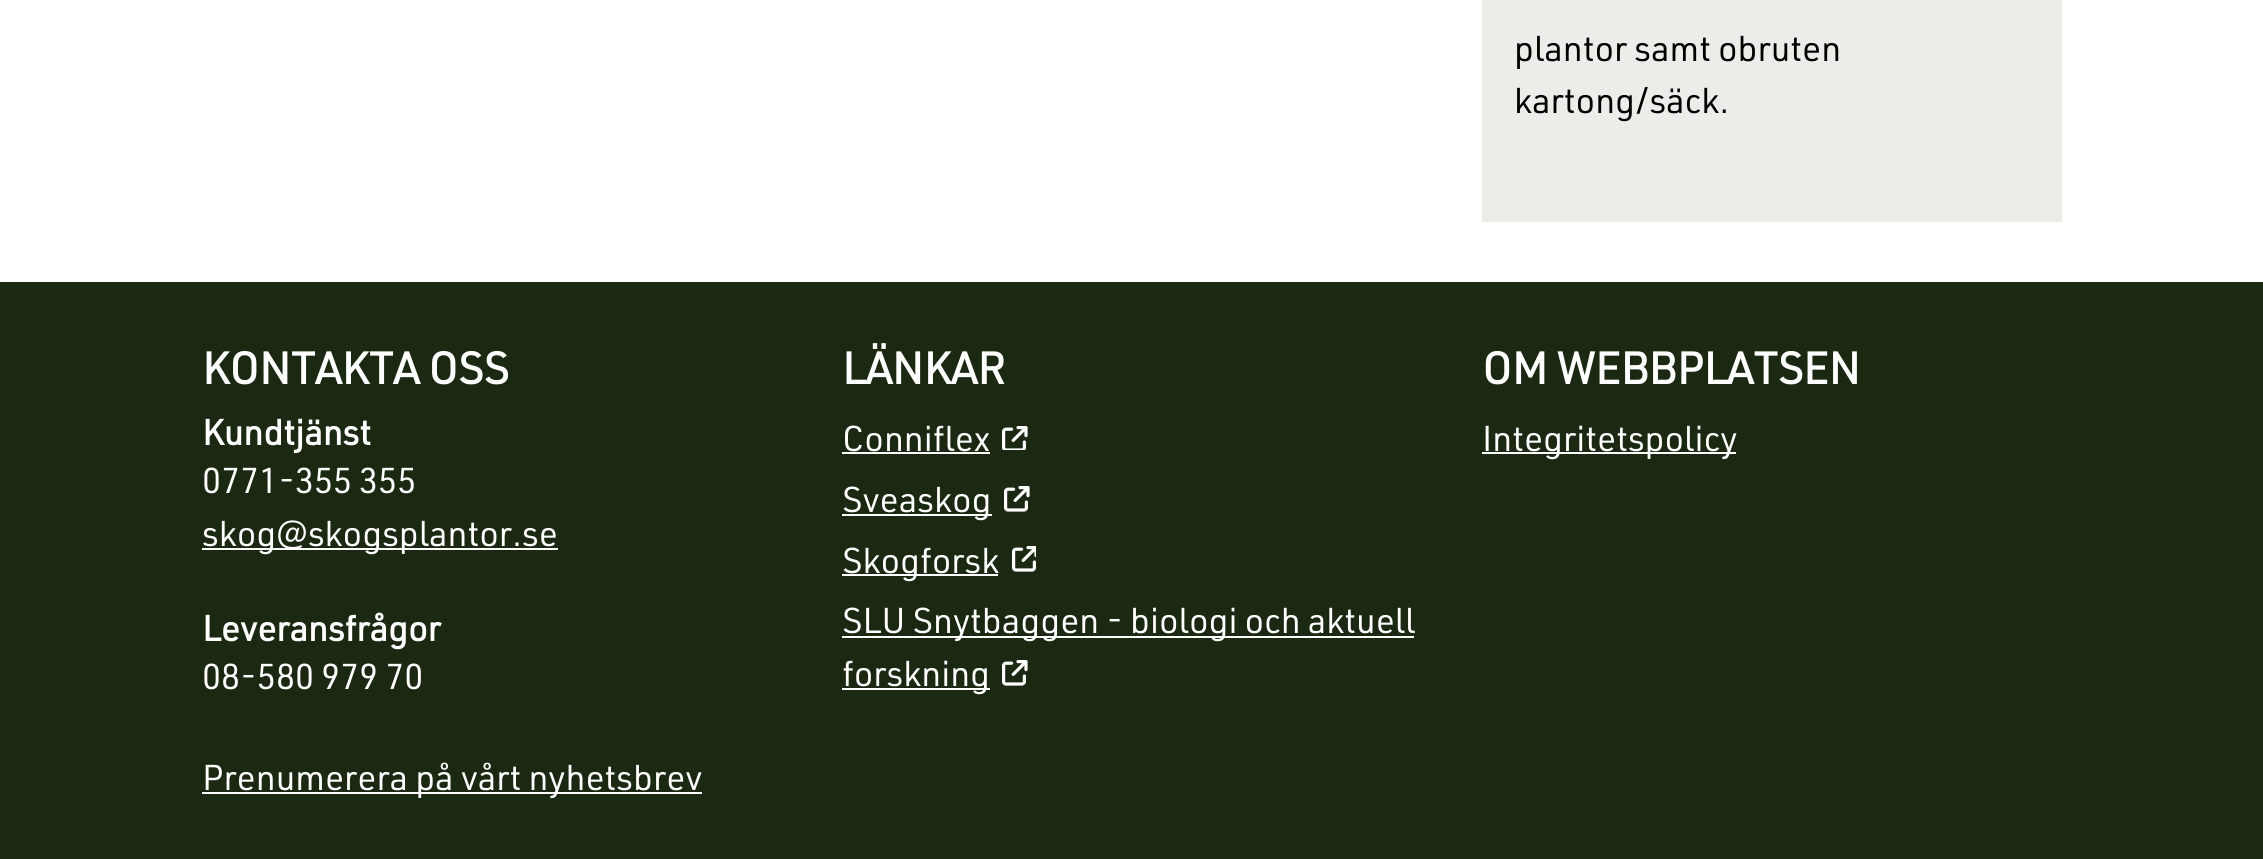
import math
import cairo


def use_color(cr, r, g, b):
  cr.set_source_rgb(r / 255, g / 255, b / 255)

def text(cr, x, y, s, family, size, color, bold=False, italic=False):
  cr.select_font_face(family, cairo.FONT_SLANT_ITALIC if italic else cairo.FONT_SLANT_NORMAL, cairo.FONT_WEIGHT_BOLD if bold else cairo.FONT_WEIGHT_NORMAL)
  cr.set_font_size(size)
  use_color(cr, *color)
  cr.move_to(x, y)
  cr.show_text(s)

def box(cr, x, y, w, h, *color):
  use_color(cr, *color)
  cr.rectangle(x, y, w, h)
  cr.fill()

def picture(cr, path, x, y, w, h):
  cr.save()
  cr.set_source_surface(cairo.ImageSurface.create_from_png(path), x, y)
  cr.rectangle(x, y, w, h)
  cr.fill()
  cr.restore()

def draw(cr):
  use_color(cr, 255, 255, 255)
  cr.paint()
  box(cr, 1482, 0, 580, 222, 236, 237, 232)
  box(cr, 0, 282, 2263, 577, 27, 41, 19)
  box(cr, 202, 548, 356, 2, 255, 255, 255)
  box(cr, 202, 792, 500, 2, 255, 255, 255)
  box(cr, 842, 452, 148, 2, 255, 255, 255)
  picture(cr, "img_01.png", 1002, 426, 26, 24)
  box(cr, 842, 514, 150, 2, 255, 255, 255)
  picture(cr, "img_02.png", 1004, 486, 26, 26)
  box(cr, 842, 574, 156, 2, 255, 255, 255)
  picture(cr, "img_03.png", 1012, 546, 24, 26)
  box(cr, 842, 636, 572, 2, 255, 255, 255)
  box(cr, 842, 688, 148, 2, 255, 255, 255)
  picture(cr, "img_02.png", 1002, 660, 26, 26)
  box(cr, 1482, 452, 254, 2, 255, 255, 255)
  text(cr, 1514, 61, "plantor samt obruten", "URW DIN", 35.25, (0, 0, 0))
  text(cr, 1514, 113, "kartong/säck.", "URW DIN", 35.25, (0, 0, 0))
  text(cr, 202, 384, "KONTAKTA OSS", "URW DIN", 44, (255, 255, 255), bold=True)
  text(cr, 202, 445, "Kundtjänst", "URW DIN", 35.25, (255, 255, 255), bold=True)
  text(cr, 202, 493, "0771-355 355", "URW DIN", 35.25, (255, 255, 255))
  text(cr, 202, 546, "skog@skogsplantor.se", "URW DIN", 35.25, (255, 255, 255))
  text(cr, 202, 641, "Leveransfrågor", "URW DIN", 35.25, (255, 255, 255), bold=True)
  text(cr, 202, 689, "08-580 979 70", "URW DIN", 35.25, (255, 255, 255))
  text(cr, 202, 790, "Prenumerera på vårt nyhetsbrev", "URW DIN", 35.25, (255, 255, 255))
  text(cr, 842, 384, "LÄNKAR", "URW DIN", 44, (255, 255, 255), bold=True)
  text(cr, 842, 451, "Conniflex", "URW DIN", 35.25, (255, 255, 255))
  text(cr, 842, 512, "Sveaskog", "URW DIN", 35.25, (255, 255, 255))
  text(cr, 842, 573, "Skogforsk", "URW DIN", 35.25, (255, 255, 255))
  text(cr, 842, 633, "SLU Snytbaggen - biologi och aktuell", "URW DIN", 35.25, (255, 255, 255))
  text(cr, 842, 686, "forskning", "URW DIN", 35.25, (255, 255, 255))
  text(cr, 1482, 384, "OM WEBBPLATSEN", "URW DIN", 44, (255, 255, 255), bold=True)
  text(cr, 1482, 451, "Integritetspolicy", "URW DIN", 35.25, (255, 255, 255))


surface = cairo.ImageSurface(cairo.FORMAT_RGB24, 2263, 859)
cr = cairo.Context(surface)
options = cairo.FontOptions()
options.set_hint_metrics(cairo.HINT_METRICS_OFF)
options.set_hint_style(cairo.HINT_STYLE_NONE)
cr.set_font_options(options)
cr.set_miter_limit(4)
draw(cr)
surface.write_to_png("out.png")
